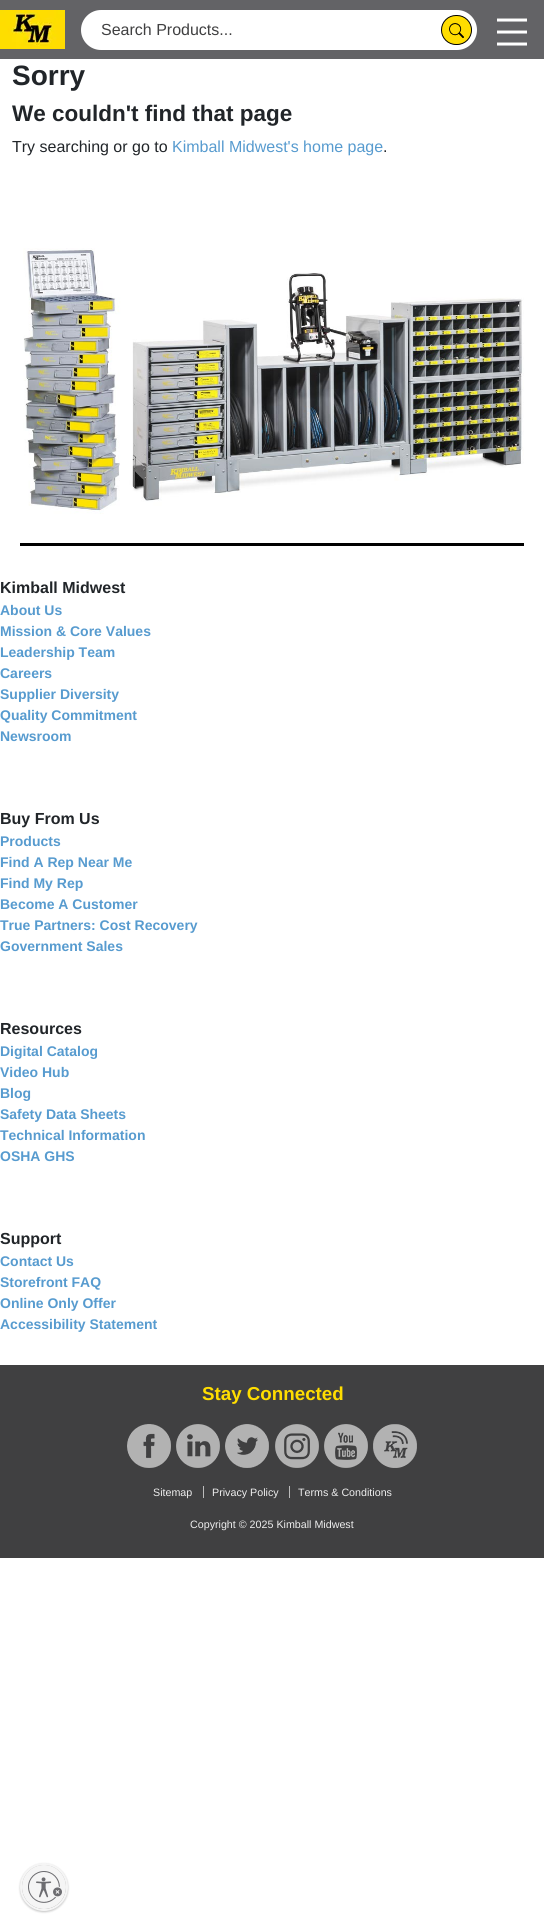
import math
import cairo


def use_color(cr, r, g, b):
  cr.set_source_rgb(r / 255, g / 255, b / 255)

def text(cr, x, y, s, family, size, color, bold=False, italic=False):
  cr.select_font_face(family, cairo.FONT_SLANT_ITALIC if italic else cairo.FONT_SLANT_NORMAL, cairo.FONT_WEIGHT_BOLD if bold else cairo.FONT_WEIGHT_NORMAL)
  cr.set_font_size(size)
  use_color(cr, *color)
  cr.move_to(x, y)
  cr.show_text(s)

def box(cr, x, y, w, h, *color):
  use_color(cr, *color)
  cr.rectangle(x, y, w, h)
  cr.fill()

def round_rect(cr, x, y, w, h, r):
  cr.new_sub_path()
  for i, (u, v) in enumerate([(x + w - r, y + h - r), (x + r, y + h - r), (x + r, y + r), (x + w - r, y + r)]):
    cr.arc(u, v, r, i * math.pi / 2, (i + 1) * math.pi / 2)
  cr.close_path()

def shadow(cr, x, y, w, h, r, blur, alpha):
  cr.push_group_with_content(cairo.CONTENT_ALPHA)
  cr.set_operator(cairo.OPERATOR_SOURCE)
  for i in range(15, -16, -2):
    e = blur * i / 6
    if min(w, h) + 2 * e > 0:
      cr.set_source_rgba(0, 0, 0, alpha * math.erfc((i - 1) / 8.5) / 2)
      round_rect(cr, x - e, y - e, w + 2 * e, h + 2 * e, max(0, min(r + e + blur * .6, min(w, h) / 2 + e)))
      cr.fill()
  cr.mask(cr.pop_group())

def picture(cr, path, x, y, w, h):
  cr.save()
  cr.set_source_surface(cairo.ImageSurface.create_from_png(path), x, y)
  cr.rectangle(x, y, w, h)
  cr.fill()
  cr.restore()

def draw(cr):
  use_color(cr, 255, 255, 255)
  cr.paint()
  box(cr, 0, 0, 544, 59, 99, 99, 102)
  picture(cr, "img_01.png", 0, 10, 65, 39)
  use_color(cr, 255, 255, 255)
  cr.new_path()
  cr.move_to(436, 10)
  cr.line_to(457, 10)
  cr.curve_to(468, 10, 477, 19, 477, 30)
  cr.curve_to(477, 41, 468, 50, 457, 50)
  cr.line_to(436, 50)
  cr.close_path()
  cr.fill()
  cr.new_path()
  cr.move_to(101, 10)
  cr.line_to(437, 10)
  cr.line_to(437, 50)
  cr.line_to(101, 50)
  cr.curve_to(90, 50, 81, 41, 81, 30)
  cr.curve_to(81, 19, 90, 10, 101, 10)
  cr.close_path()
  cr.fill()
  use_color(cr, 255, 221, 0)
  round_rect(cr, 441.5, 15.5, 30, 29, 14.5)
  cr.fill_preserve()
  use_color(cr, 0, 0, 0)
  cr.set_line_width(1)
  cr.stroke()
  picture(cr, "img_02.png", 449, 23, 15, 15)
  cr.save()
  cr.rectangle(497, 17, 30, 30)
  cr.clip()
  cr.new_path()
  cr.move_to(494, 20)
  cr.line_to(530, 20)
  cr.move_to(494, 32)
  cr.line_to(530, 32)
  cr.move_to(494, 44)
  cr.line_to(530, 44)
  use_color(cr, 255, 255, 255)
  cr.set_line_width(3)
  cr.set_line_cap(cairo.LINE_CAP_ROUND)
  cr.stroke()
  cr.restore()
  picture(cr, "img_03.png", 23, 248, 501, 266)
  box(cr, 20, 543, 504, 3, 0, 0, 0)
  box(cr, 0, 1365, 544, 193, 64, 64, 65)
  picture(cr, "img_04.png", 127, 1424, 44, 44)
  picture(cr, "img_05.png", 176, 1424, 44, 44)
  picture(cr, "img_06.png", 225, 1424, 44, 44)
  picture(cr, "img_07.png", 275, 1424, 44, 44)
  picture(cr, "img_08.png", 324, 1424, 44, 44)
  picture(cr, "img_09.png", 373, 1424, 44, 44)
  box(cr, 203, 1486, 1, 12, 187, 187, 187)
  box(cr, 289, 1486, 1, 12, 187, 187, 187)
  use_color(cr, 0, 0, 0)
  shadow(cr, 20, 1864, 48, 48, 24, 1, 0.24)
  cr.arc(44, 1887, 23, 0, 2 * math.pi)
  use_color(cr, 245, 245, 245)
  cr.set_line_width(2)
  cr.stroke()
  cr.save()
  round_rect(cr, 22, 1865, 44, 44, 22)
  cr.clip()
  use_color(cr, 0, 0, 0)
  shadow(cr, 22, 1866, 44, 44, 22, 1, 0.24)
  cr.restore()
  cr.arc(44, 1887, 22, 0, 2 * math.pi)
  cr.fill()
  picture(cr, "img_10.png", 28, 1871, 34, 32)
  text(cr, 101, 35, "Search Products...", "Liberation Sans", 16, (64, 64, 65))
  text(cr, 12, 85, "Sorry", "Liberation Sans", 28, (33, 37, 41), bold=True)
  text(cr, 12, 121, "We couldn't find that page", "Liberation Sans", 22.5, (33, 37, 41), bold=True)
  text(cr, 12, 152, "Try searching or go to", "Liberation Sans", 16, (33, 37, 41))
  text(cr, 172, 152, "Kimball Midwest's home page", "Liberation Sans", 16, (87, 155, 207))
  text(cr, 383, 152, ".", "Liberation Sans", 16, (33, 37, 41))
  text(cr, 0, 593, "Kimball Midwest", "Liberation Sans", 16, (33, 37, 41), bold=True)
  text(cr, 0, 615, "About Us", "Liberation Sans", 14, (87, 155, 207), bold=True)
  text(cr, 0, 636, "Mission & Core Values", "Liberation Sans", 14, (87, 155, 207), bold=True)
  text(cr, 0, 657, "Leadership Team", "Liberation Sans", 14, (87, 155, 207), bold=True)
  text(cr, 0, 678, "Careers", "Liberation Sans", 14, (87, 155, 207), bold=True)
  text(cr, 0, 699, "Supplier Diversity", "Liberation Sans", 14, (87, 155, 207), bold=True)
  text(cr, 0, 720, "Quality Commitment", "Liberation Sans", 14, (87, 155, 207), bold=True)
  text(cr, 0, 741, "Newsroom", "Liberation Sans", 14, (87, 155, 207), bold=True)
  text(cr, 0, 824, "Buy From Us", "Liberation Sans", 16, (33, 37, 41), bold=True)
  text(cr, 0, 846, "Products", "Liberation Sans", 14, (87, 155, 207), bold=True)
  text(cr, 0, 867, "Find A Rep Near Me", "Liberation Sans", 14, (87, 155, 207), bold=True)
  text(cr, 0, 888, "Find My Rep", "Liberation Sans", 14, (87, 155, 207), bold=True)
  text(cr, 0, 909, "Become A Customer", "Liberation Sans", 14, (87, 155, 207), bold=True)
  text(cr, 0, 930, "True Partners: Cost Recovery", "Liberation Sans", 14, (87, 155, 207), bold=True)
  text(cr, 0, 951, "Government Sales", "Liberation Sans", 14, (87, 155, 207), bold=True)
  text(cr, 0, 1034, "Resources", "Liberation Sans", 16, (33, 37, 41), bold=True)
  text(cr, 0, 1056, "Digital Catalog", "Liberation Sans", 14, (87, 155, 207), bold=True)
  text(cr, 0, 1077, "Video Hub", "Liberation Sans", 14, (87, 155, 207), bold=True)
  text(cr, 0, 1098, "Blog", "Liberation Sans", 14, (87, 155, 207), bold=True)
  text(cr, 0, 1119, "Safety Data Sheets", "Liberation Sans", 14, (87, 155, 207), bold=True)
  text(cr, 0, 1140, "Technical Information", "Liberation Sans", 14, (87, 155, 207), bold=True)
  text(cr, 0, 1161, "OSHA GHS", "Liberation Sans", 14, (87, 155, 207), bold=True)
  text(cr, 0, 1244, "Support", "Liberation Sans", 16, (33, 37, 41), bold=True)
  text(cr, 0, 1266, "Contact Us", "Liberation Sans", 14, (87, 155, 207), bold=True)
  text(cr, 0, 1287, "Storefront FAQ", "Liberation Sans", 14, (87, 155, 207), bold=True)
  text(cr, 0, 1308, "Online Only Offer", "Liberation Sans", 14, (87, 155, 207), bold=True)
  text(cr, 0, 1329, "Accessibility Statement", "Liberation Sans", 14, (87, 155, 207), bold=True)
  text(cr, 202, 1400, "Stay Connected", "Liberation Sans", 18.75, (255, 221, 0), bold=True)
  text(cr, 153, 1496, "Sitemap", "Liberation Sans", 10.7, (238, 238, 238))
  text(cr, 212, 1496, "Privacy Policy", "Liberation Sans", 10.7, (238, 238, 238))
  text(cr, 298, 1496, "Terms & Conditions", "Liberation Sans", 10.7, (238, 238, 238))
  text(cr, 190, 1528, "Copyright © 2025 Kimball Midwest", "Liberation Sans", 10.7, (238, 238, 238))


surface = cairo.ImageSurface(cairo.FORMAT_RGB24, 544, 1931)
cr = cairo.Context(surface)
options = cairo.FontOptions()
options.set_hint_metrics(cairo.HINT_METRICS_OFF)
options.set_hint_style(cairo.HINT_STYLE_NONE)
cr.set_font_options(options)
cr.set_miter_limit(4)
draw(cr)
surface.write_to_png("out.png")
